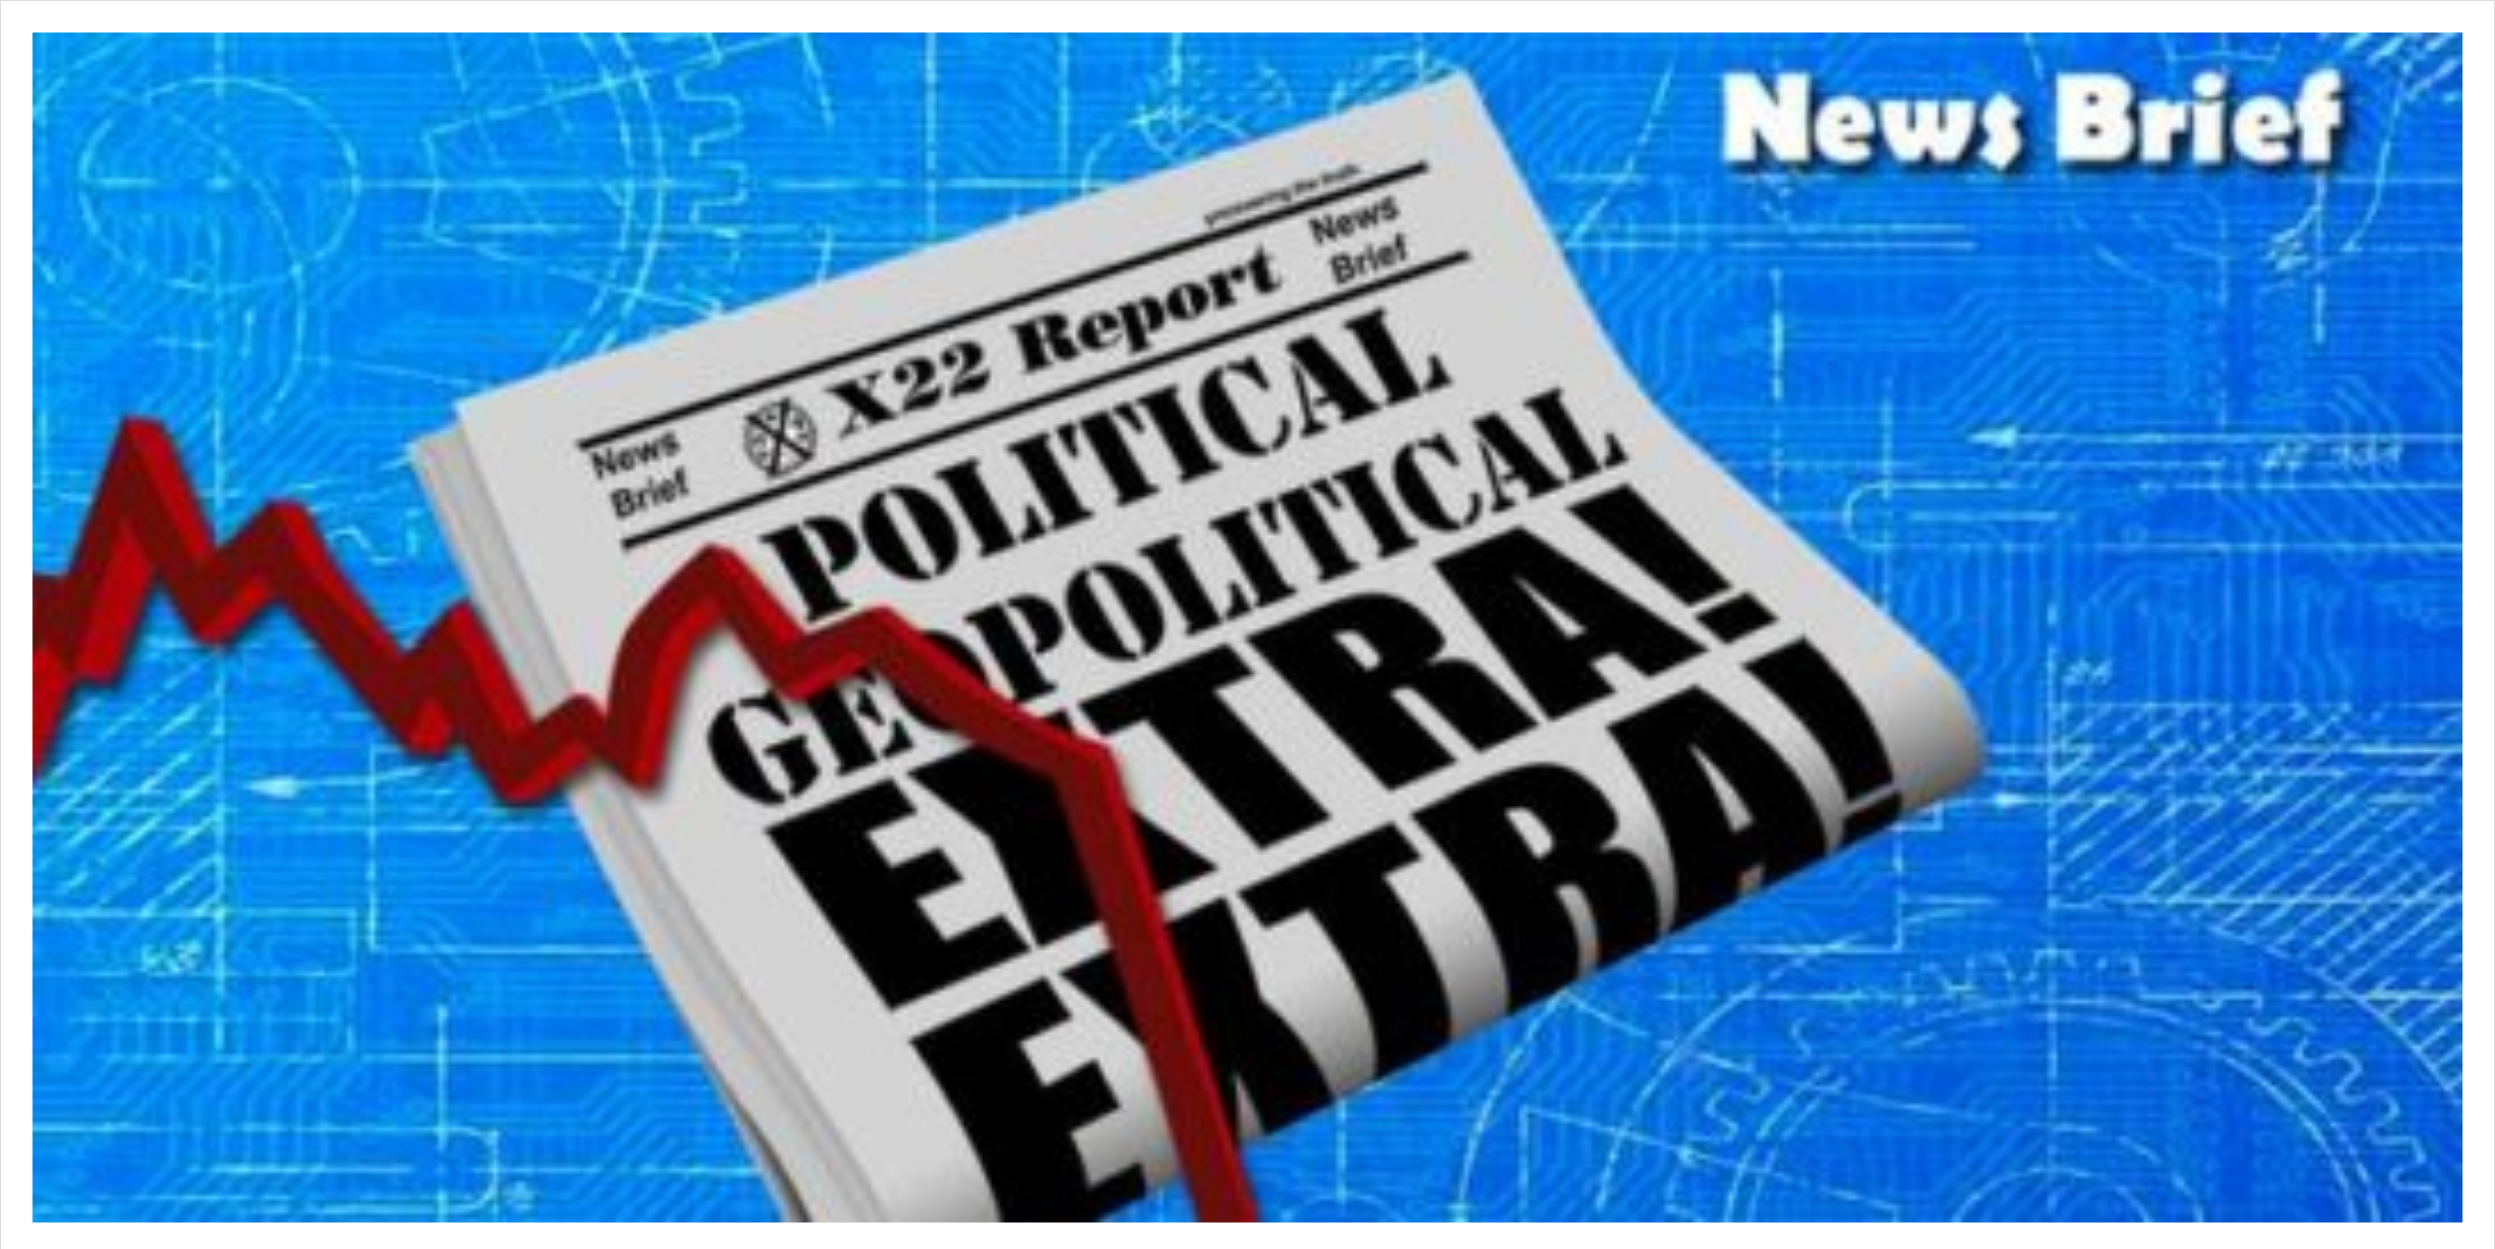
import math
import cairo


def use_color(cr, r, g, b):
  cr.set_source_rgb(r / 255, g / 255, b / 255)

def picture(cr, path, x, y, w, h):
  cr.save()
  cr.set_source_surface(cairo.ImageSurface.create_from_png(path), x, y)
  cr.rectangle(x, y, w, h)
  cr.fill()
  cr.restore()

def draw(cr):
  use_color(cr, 255, 255, 255)
  cr.paint()
  cr.rectangle(0.5, 0.5, 2494, 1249)
  use_color(cr, 220, 220, 222)
  cr.set_line_width(1)
  cr.stroke()
  picture(cr, "img_01.png", 32, 32, 2431, 1191)


surface = cairo.ImageSurface(cairo.FORMAT_RGB24, 2495, 1249)
cr = cairo.Context(surface)
options = cairo.FontOptions()
options.set_hint_metrics(cairo.HINT_METRICS_OFF)
options.set_hint_style(cairo.HINT_STYLE_NONE)
cr.set_font_options(options)
cr.set_miter_limit(4)
draw(cr)
surface.write_to_png("out.png")
